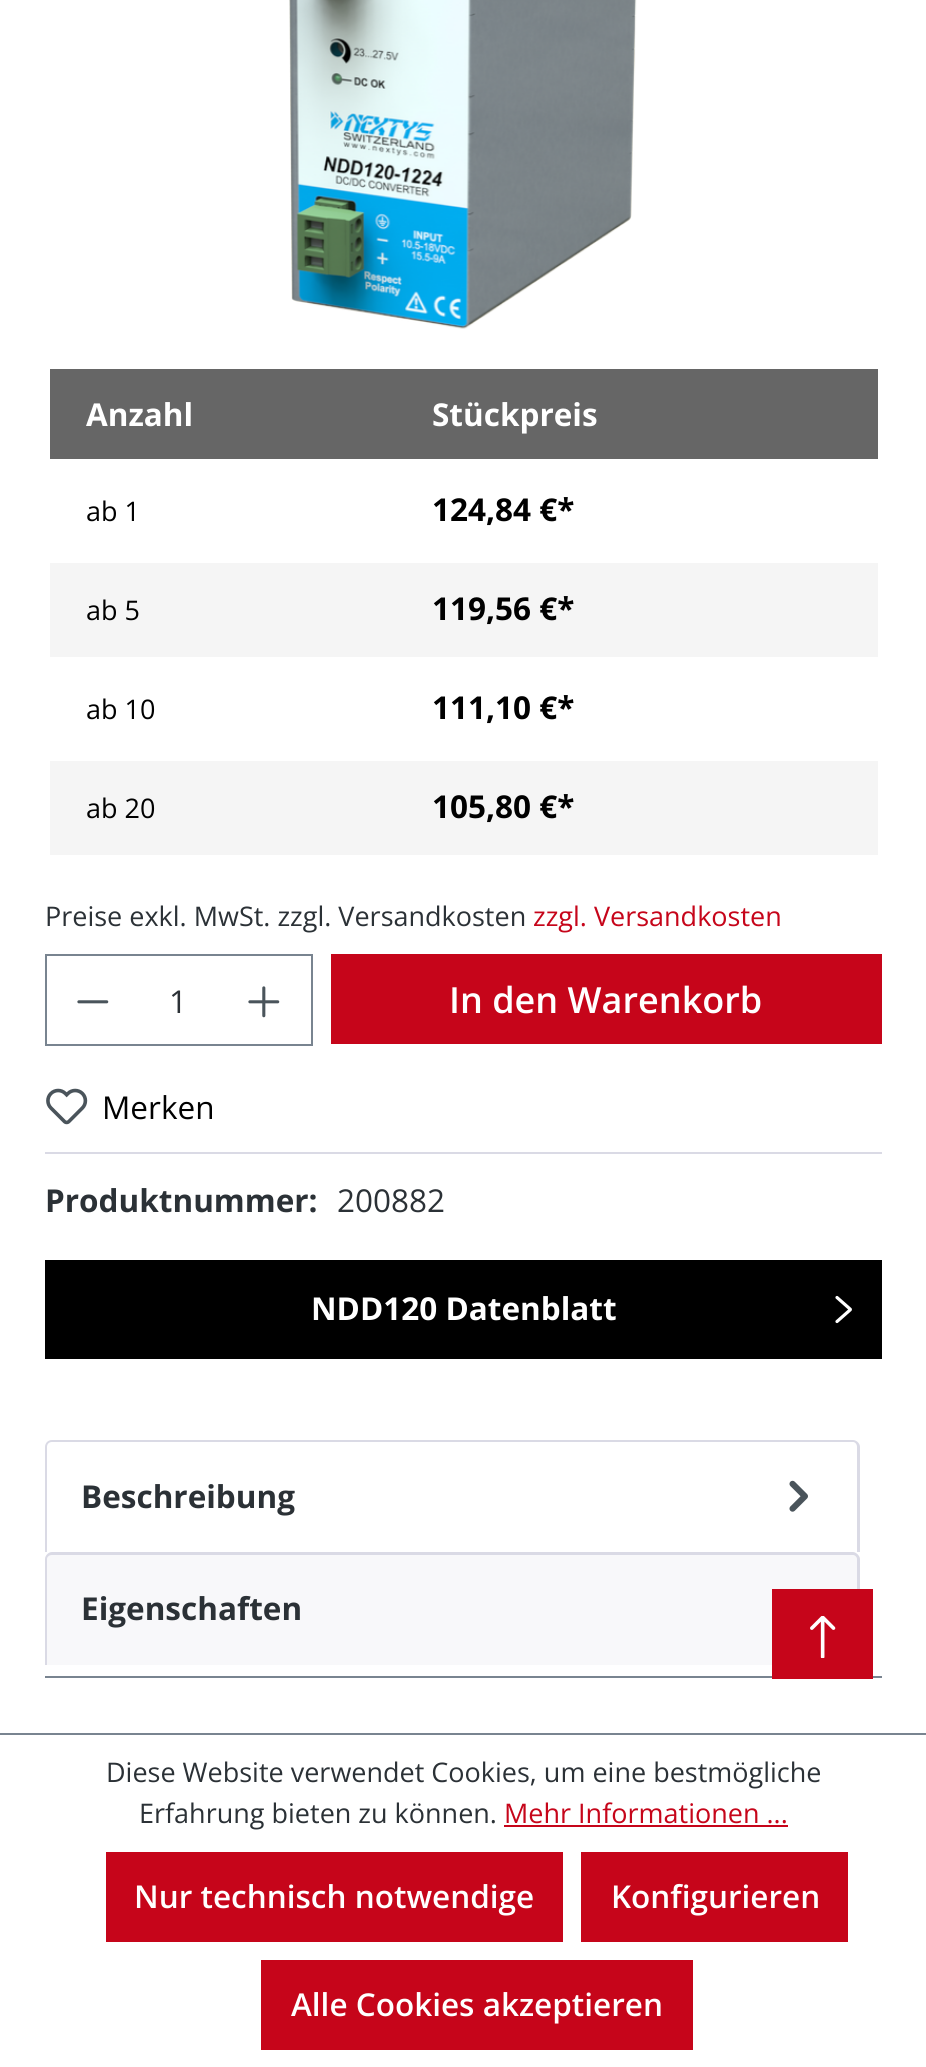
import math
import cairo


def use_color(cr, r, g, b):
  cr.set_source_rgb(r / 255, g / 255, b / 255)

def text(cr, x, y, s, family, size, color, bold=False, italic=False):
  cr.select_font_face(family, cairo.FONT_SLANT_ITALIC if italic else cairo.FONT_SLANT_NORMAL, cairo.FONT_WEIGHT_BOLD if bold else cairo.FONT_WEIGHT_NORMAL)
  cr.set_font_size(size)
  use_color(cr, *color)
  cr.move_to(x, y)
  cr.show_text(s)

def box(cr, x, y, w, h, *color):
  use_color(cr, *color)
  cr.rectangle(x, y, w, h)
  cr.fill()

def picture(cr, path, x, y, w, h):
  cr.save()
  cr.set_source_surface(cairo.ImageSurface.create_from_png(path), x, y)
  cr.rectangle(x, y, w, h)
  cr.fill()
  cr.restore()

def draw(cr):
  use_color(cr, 255, 255, 255)
  cr.paint()
  picture(cr, "img_01.png", 289, 0, 348, 329)
  box(cr, 50, 369, 828, 90, 102, 102, 102)
  box(cr, 50, 563, 828, 94, 245, 245, 245)
  box(cr, 50, 761, 828, 94, 245, 245, 245)
  box(cr, 45, 954, 268, 2, 121, 132, 144)
  box(cr, 45, 1044, 176, 2, 121, 132, 144)
  box(cr, 45, 954, 2, 92, 121, 132, 144)
  picture(cr, "img_02.png", 77, 1000, 32, 4)
  box(cr, 311, 954, 2, 92, 121, 132, 144)
  box(cr, 218, 1044, 95, 2, 121, 132, 144)
  picture(cr, "img_03.png", 248, 986, 32, 32)
  box(cr, 331, 954, 551, 90, 198, 5, 26)
  box(cr, 45, 1152, 837, 2, 218, 218, 229)
  picture(cr, "img_04.png", 46, 1088, 42, 37)
  box(cr, 45, 1260, 837, 99, 0, 0, 0)
  cr.new_path()
  cr.move_to(837, 1297.5)
  cr.line_to(850, 1309)
  cr.curve_to(850.5, 1309, 850.5, 1310, 850, 1310)
  cr.line_to(837, 1321.5)
  use_color(cr, 255, 255, 255)
  cr.set_line_width(3.2)
  cr.set_line_cap(cairo.LINE_CAP_ROUND)
  cr.stroke()
  box(cr, 45, 1676, 837, 2, 121, 132, 144)
  use_color(cr, 218, 218, 229)
  cr.set_fill_rule(cairo.FILL_RULE_EVEN_ODD)
  cr.new_path()
  cr.move_to(52, 1440)
  cr.line_to(853, 1440)
  cr.curve_to(856, 1440, 860, 1443, 860, 1447)
  cr.line_to(860, 1552)
  cr.line_to(45, 1552)
  cr.line_to(45, 1447)
  cr.curve_to(45, 1443, 48, 1440, 52, 1440)
  cr.close_path()
  cr.move_to(52, 1442)
  cr.line_to(853, 1442)
  cr.curve_to(855, 1442, 857, 1444, 857, 1447)
  cr.line_to(857, 1552)
  cr.line_to(47, 1552)
  cr.line_to(47, 1447)
  cr.curve_to(47, 1444, 49, 1442, 52, 1442)
  cr.close_path()
  cr.fill()
  picture(cr, "img_05.png", 789, 1480, 19, 32)
  use_color(cr, 248, 248, 250)
  cr.new_path()
  cr.move_to(52, 1553)
  cr.line_to(853, 1553)
  cr.curve_to(857, 1553, 860, 1556, 860, 1560)
  cr.line_to(860, 1665)
  cr.line_to(45, 1665)
  cr.line_to(45, 1560)
  cr.curve_to(45, 1556, 48, 1553, 52, 1553)
  cr.close_path()
  cr.fill()
  use_color(cr, 218, 218, 229)
  cr.new_path()
  cr.move_to(52, 1552)
  cr.line_to(853, 1552)
  cr.curve_to(856, 1552, 860, 1556, 860, 1559)
  cr.line_to(860, 1665)
  cr.line_to(45, 1665)
  cr.line_to(45, 1559)
  cr.curve_to(45, 1556, 48, 1552, 52, 1552)
  cr.close_path()
  cr.move_to(52, 1555)
  cr.line_to(853, 1555)
  cr.curve_to(855, 1555, 857, 1557, 857, 1559)
  cr.line_to(857, 1665)
  cr.line_to(47, 1665)
  cr.line_to(47, 1559)
  cr.curve_to(47, 1557, 49, 1555, 52, 1555)
  cr.close_path()
  cr.fill()
  box(cr, 772, 1589, 101, 90, 198, 5, 26)
  picture(cr, "img_06.png", 810, 1616, 26, 42)
  box(cr, 0, 1733, 926, 2, 121, 132, 144)
  box(cr, 504, 1825, 284, 2, 198, 5, 26)
  box(cr, 106, 1852, 457, 90, 198, 5, 26)
  box(cr, 581, 1852, 267, 90, 198, 5, 26)
  box(cr, 261, 1960, 432, 90, 198, 5, 26)
  text(cr, 86, 426, "Anzahl", "Open Sans", 31.5, (255, 255, 255), bold=True)
  text(cr, 432, 426, "Stückpreis", "Open Sans", 31.5, (255, 255, 255), bold=True)
  text(cr, 86, 521, "ab 1", "Open Sans", 27, (0, 0, 0))
  text(cr, 432, 521, "124,84 €*", "Open Sans", 31.5, (0, 0, 0), bold=True)
  text(cr, 86, 620, "ab 5", "Open Sans", 27, (0, 0, 0))
  text(cr, 432, 620, "119,56 €*", "Open Sans", 31.5, (0, 0, 0), bold=True)
  text(cr, 86, 719, "ab 10", "Open Sans", 27, (0, 0, 0))
  text(cr, 432, 719, "111,10 €*", "Open Sans", 31.5, (0, 0, 0), bold=True)
  text(cr, 86, 818, "ab 20", "Open Sans", 27, (0, 0, 0))
  text(cr, 432, 818, "105,80 €*", "Open Sans", 31.5, (0, 0, 0), bold=True)
  text(cr, 45, 926, "Preise exkl. MwSt. zzgl. Versandkosten", "Open Sans", 27, (43, 49, 54))
  text(cr, 533, 926, "zzgl. Versandkosten", "Open Sans", 27, (198, 5, 26))
  text(cr, 169, 1013, "1", "Open Sans", 31.5, (43, 49, 54))
  text(cr, 449, 1013, "In den Warenkorb", "Open Sans SemiBold", 36, (255, 255, 255))
  text(cr, 102, 1119, "Merken", "Open Sans", 31.5, (0, 0, 0))
  text(cr, 45, 1212, "Produktnummer:", "Open Sans", 31.5, (43, 49, 54), bold=True)
  text(cr, 337, 1212, "200882", "Open Sans", 31.5, (43, 49, 54))
  text(cr, 311, 1320, "NDD120 Datenblatt", "Open Sans", 31.5, (255, 255, 255), bold=True)
  text(cr, 81, 1508, "Beschreibung", "Open Sans", 31.5, (43, 49, 54), bold=True)
  text(cr, 81, 1620, "Eigenschaften", "Open Sans", 31.5, (43, 49, 54), bold=True)
  text(cr, 106, 1782, "Diese Website verwendet Cookies, um eine bestmögliche", "Open Sans", 27, (43, 49, 54))
  text(cr, 139, 1823, "Erfahrung bieten zu können.", "Open Sans", 27, (43, 49, 54))
  text(cr, 504, 1823, "Mehr Informationen ...", "Open Sans", 27, (198, 5, 26))
  text(cr, 134, 1908, "Nur technisch notwendige", "Open Sans SemiBold", 31.5, (255, 255, 255))
  text(cr, 611, 1908, "Konfigurieren", "Open Sans SemiBold", 31.5, (255, 255, 255))
  text(cr, 291, 2016, "Alle Cookies akzeptieren", "Open Sans SemiBold", 31.5, (255, 255, 255))


surface = cairo.ImageSurface(cairo.FORMAT_RGB24, 926, 2067)
cr = cairo.Context(surface)
options = cairo.FontOptions()
options.set_hint_metrics(cairo.HINT_METRICS_OFF)
options.set_hint_style(cairo.HINT_STYLE_NONE)
cr.set_font_options(options)
cr.set_miter_limit(4)
draw(cr)
surface.write_to_png("out.png")
